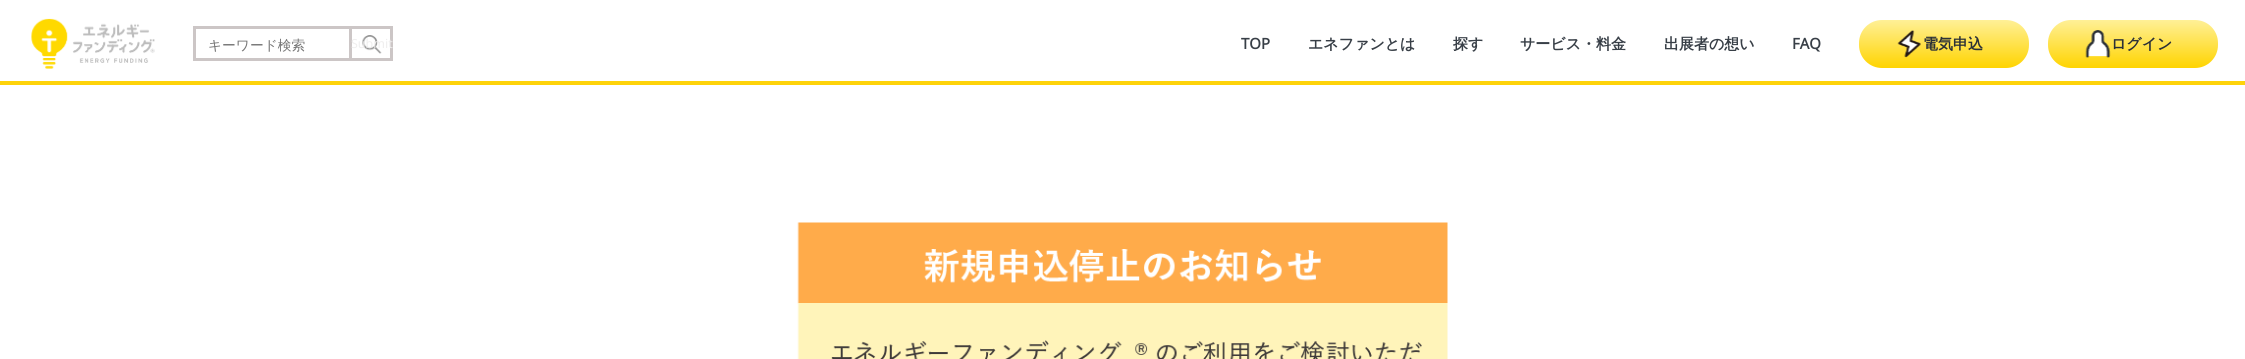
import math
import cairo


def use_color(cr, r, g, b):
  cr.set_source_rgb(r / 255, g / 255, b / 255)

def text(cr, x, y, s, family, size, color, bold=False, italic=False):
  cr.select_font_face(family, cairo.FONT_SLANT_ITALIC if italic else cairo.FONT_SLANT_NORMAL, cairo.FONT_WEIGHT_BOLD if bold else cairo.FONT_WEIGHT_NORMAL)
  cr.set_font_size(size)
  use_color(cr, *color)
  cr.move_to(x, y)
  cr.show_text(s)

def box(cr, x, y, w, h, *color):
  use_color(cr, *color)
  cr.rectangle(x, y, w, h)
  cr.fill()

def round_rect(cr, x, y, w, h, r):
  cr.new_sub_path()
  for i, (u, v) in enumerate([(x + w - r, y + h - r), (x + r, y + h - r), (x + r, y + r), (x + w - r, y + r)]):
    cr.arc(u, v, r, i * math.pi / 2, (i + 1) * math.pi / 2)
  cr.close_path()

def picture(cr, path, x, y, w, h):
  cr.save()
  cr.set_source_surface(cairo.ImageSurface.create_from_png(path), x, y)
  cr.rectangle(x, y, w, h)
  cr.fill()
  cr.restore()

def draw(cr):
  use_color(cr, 255, 255, 255)
  cr.paint()
  box(cr, 0, 81, 2245, 4, 254, 211, 10)
  picture(cr, "img_01.png", 31, 18, 124, 51)
  cr.rectangle(194.5, 27.5, 197, 32)
  use_color(cr, 204, 198, 198)
  cr.set_line_width(3)
  cr.stroke()
  picture(cr, "img_02.png", 362, 35, 20, 19)
  box(cr, 349, 26, 3, 35, 204, 198, 198)
  gradient = cairo.LinearGradient(1944, 20, 1944, 68)
  gradient.add_color_stop_rgba(0, 1, 0.941, 0.592, 1)
  gradient.add_color_stop_rgba(1, 1, 0.831, 0, 1)
  cr.set_source(gradient)
  round_rect(cr, 1859, 20, 170, 48, 23)
  cr.fill()
  picture(cr, "img_03.png", 1897, 30, 24, 28)
  gradient = cairo.LinearGradient(2133, 20, 2133, 68)
  gradient.add_color_stop_rgba(0, 1, 0.941, 0.592, 1)
  gradient.add_color_stop_rgba(1, 1, 0.831, 0, 1)
  cr.set_source(gradient)
  round_rect(cr, 2048, 20, 170, 48, 23)
  cr.fill()
  picture(cr, "img_04.png", 2085, 30, 26, 28)
  picture(cr, "img_05.png", 797, 222, 651, 137)
  text(cr, 208, 50, "キーワード検索", "WenQuanYi Zen Hei Medium", 13.75, (117, 117, 117))
  text(cr, 351, 48, "Submit", "Noto Sans", 12.5, (239, 238, 238))
  text(cr, 1241, 49, "TOP", "Noto Sans", 15, (56, 63, 71), bold=True)
  text(cr, 1308, 49, "エネファンとは", "WenQuanYi Zen Hei", 15, (56, 63, 71), bold=True)
  text(cr, 1453, 49, "探す", "WenQuanYi Zen Hei", 15, (56, 63, 71), bold=True)
  text(cr, 1520, 49, "サービス・料金", "WenQuanYi Zen Hei", 15, (56, 63, 71), bold=True)
  text(cr, 1664, 49, "出展者の想い", "WenQuanYi Zen Hei", 15, (56, 63, 71), bold=True)
  text(cr, 1792, 49, "FAQ", "Noto Sans", 15, (56, 63, 71), bold=True)
  text(cr, 1923, 49, "電気申込", "WenQuanYi Zen Hei", 15, (43, 48, 55), bold=True)
  text(cr, 2111, 49, "ログイン", "WenQuanYi Zen Hei", 15, (43, 48, 55), bold=True)


surface = cairo.ImageSurface(cairo.FORMAT_RGB24, 2245, 359)
cr = cairo.Context(surface)
options = cairo.FontOptions()
options.set_hint_metrics(cairo.HINT_METRICS_OFF)
options.set_hint_style(cairo.HINT_STYLE_NONE)
cr.set_font_options(options)
cr.set_miter_limit(4)
draw(cr)
surface.write_to_png("out.png")
